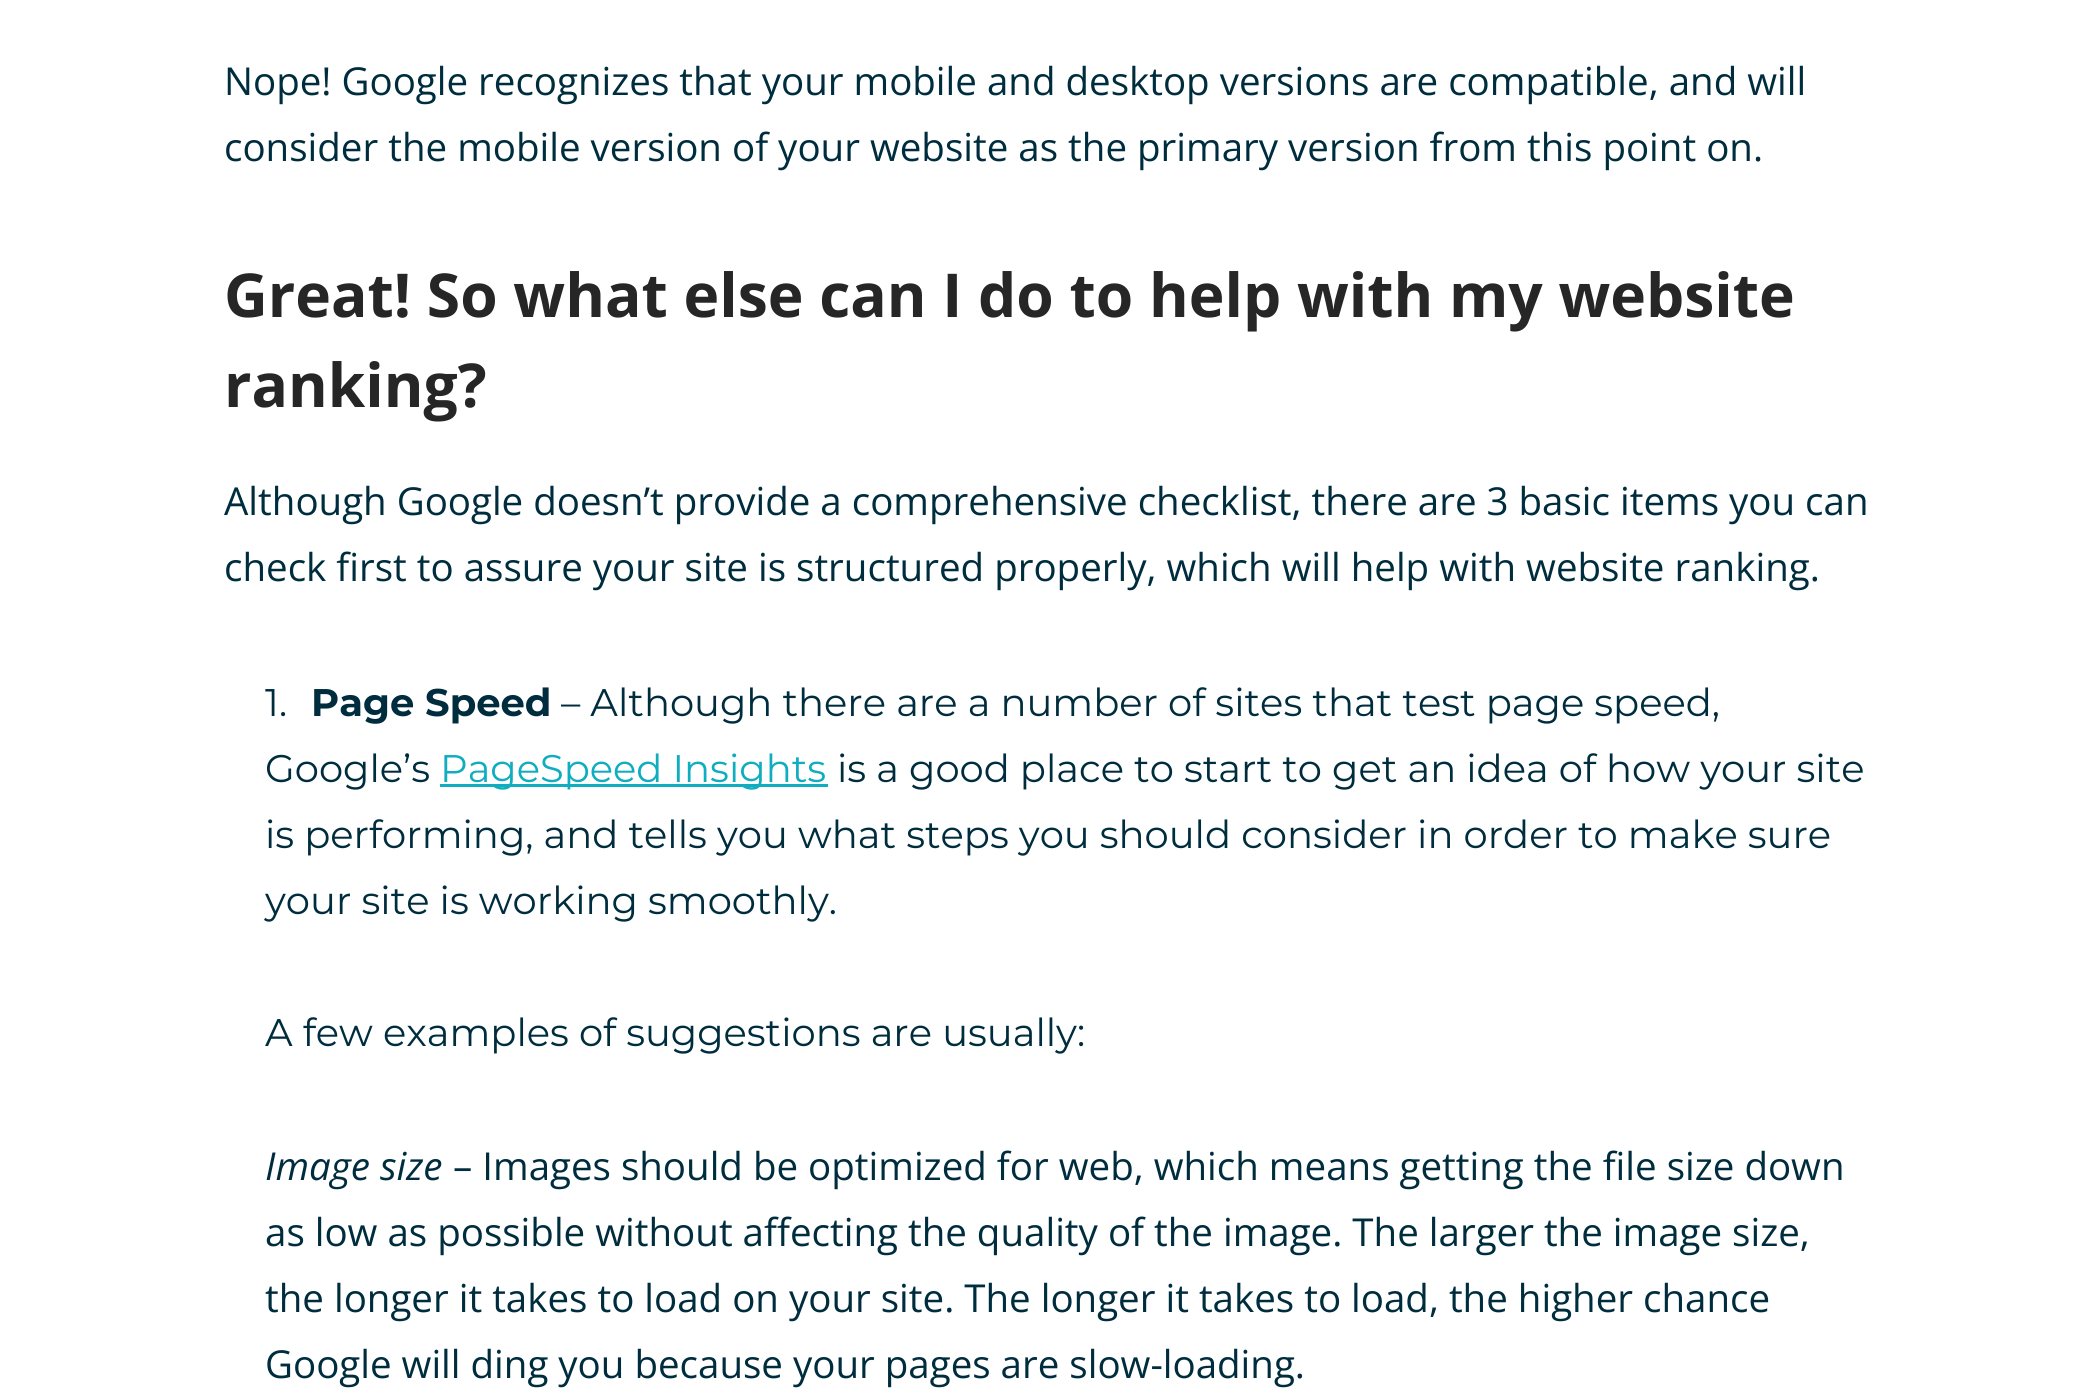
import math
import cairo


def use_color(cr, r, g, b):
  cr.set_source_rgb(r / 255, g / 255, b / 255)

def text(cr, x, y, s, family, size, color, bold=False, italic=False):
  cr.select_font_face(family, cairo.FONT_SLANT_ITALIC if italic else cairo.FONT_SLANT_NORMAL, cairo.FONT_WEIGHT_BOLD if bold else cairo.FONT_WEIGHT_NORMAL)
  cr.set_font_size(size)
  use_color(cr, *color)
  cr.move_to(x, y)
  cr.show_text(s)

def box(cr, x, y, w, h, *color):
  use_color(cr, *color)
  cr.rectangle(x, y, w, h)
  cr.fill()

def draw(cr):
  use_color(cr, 255, 255, 255)
  cr.paint()
  box(cr, 440, 784, 388, 3, 15, 173, 191)
  text(cr, 224, 95, "Nope! Google recognizes that your mobile and desktop versions are compatible, and will", "Open Sans", 38.5, (0, 45, 62))
  text(cr, 224, 161, "consider the mobile version of your website as the primary version from this point on.", "Open Sans", 38.5, (0, 45, 62))
  text(cr, 224, 317, "Great! So what else can I do to help with my website", "Open Sans", 60.5, (38, 38, 38), bold=True)
  text(cr, 224, 407, "ranking?", "Open Sans", 60.5, (38, 38, 38), bold=True)
  text(cr, 224, 515, "Although Google doesn’t provide a comprehensive checklist, there are 3 basic items you can", "Open Sans", 38.5, (0, 45, 62))
  text(cr, 224, 581, "check first to assure your site is structured properly, which will help with website ranking.", "Open Sans", 38.5, (0, 45, 62))
  text(cr, 265, 716, "1.", "Montserrat", 38.5, (0, 45, 62))
  text(cr, 311, 716, "Page Speed", "Montserrat", 38.5, (0, 45, 62), bold=True)
  text(cr, 561, 716, "– Although there are a number of sites that test page speed,", "Montserrat", 38.5, (0, 45, 62))
  text(cr, 265, 782, "Google’s", "Montserrat", 38.5, (0, 45, 62))
  text(cr, 440, 782, "PageSpeed Insights", "Montserrat", 38.5, (15, 173, 191))
  text(cr, 837, 782, "is a good place to start to get an idea of how your site", "Montserrat", 38.5, (0, 45, 62))
  text(cr, 265, 848, "is performing, and tells you what steps you should consider in order to make sure", "Montserrat", 38.5, (0, 45, 62))
  text(cr, 265, 914, "your site is working smoothly.", "Montserrat", 38.5, (0, 45, 62))
  text(cr, 265, 1046, "A few examples of suggestions are usually:", "Montserrat", 38.5, (0, 45, 62))
  text(cr, 265, 1180, "Image size", "Open Sans", 38.5, (0, 45, 62), italic=True)
  text(cr, 453, 1180, "– Images should be optimized for web, which means getting the file size down", "Open Sans", 38.5, (0, 45, 62))
  text(cr, 265, 1246, "as low as possible without affecting the quality of the image. The larger the image size,", "Open Sans", 38.5, (0, 45, 62))
  text(cr, 265, 1312, "the longer it takes to load on your site. The longer it takes to load, the higher chance", "Open Sans", 38.5, (0, 45, 62))
  text(cr, 265, 1378, "Google will ding you because your pages are slow-loading.", "Open Sans", 38.5, (0, 45, 62))


surface = cairo.ImageSurface(cairo.FORMAT_RGB24, 2096, 1398)
cr = cairo.Context(surface)
options = cairo.FontOptions()
options.set_hint_metrics(cairo.HINT_METRICS_OFF)
options.set_hint_style(cairo.HINT_STYLE_NONE)
cr.set_font_options(options)
cr.set_miter_limit(4)
draw(cr)
surface.write_to_png("out.png")
